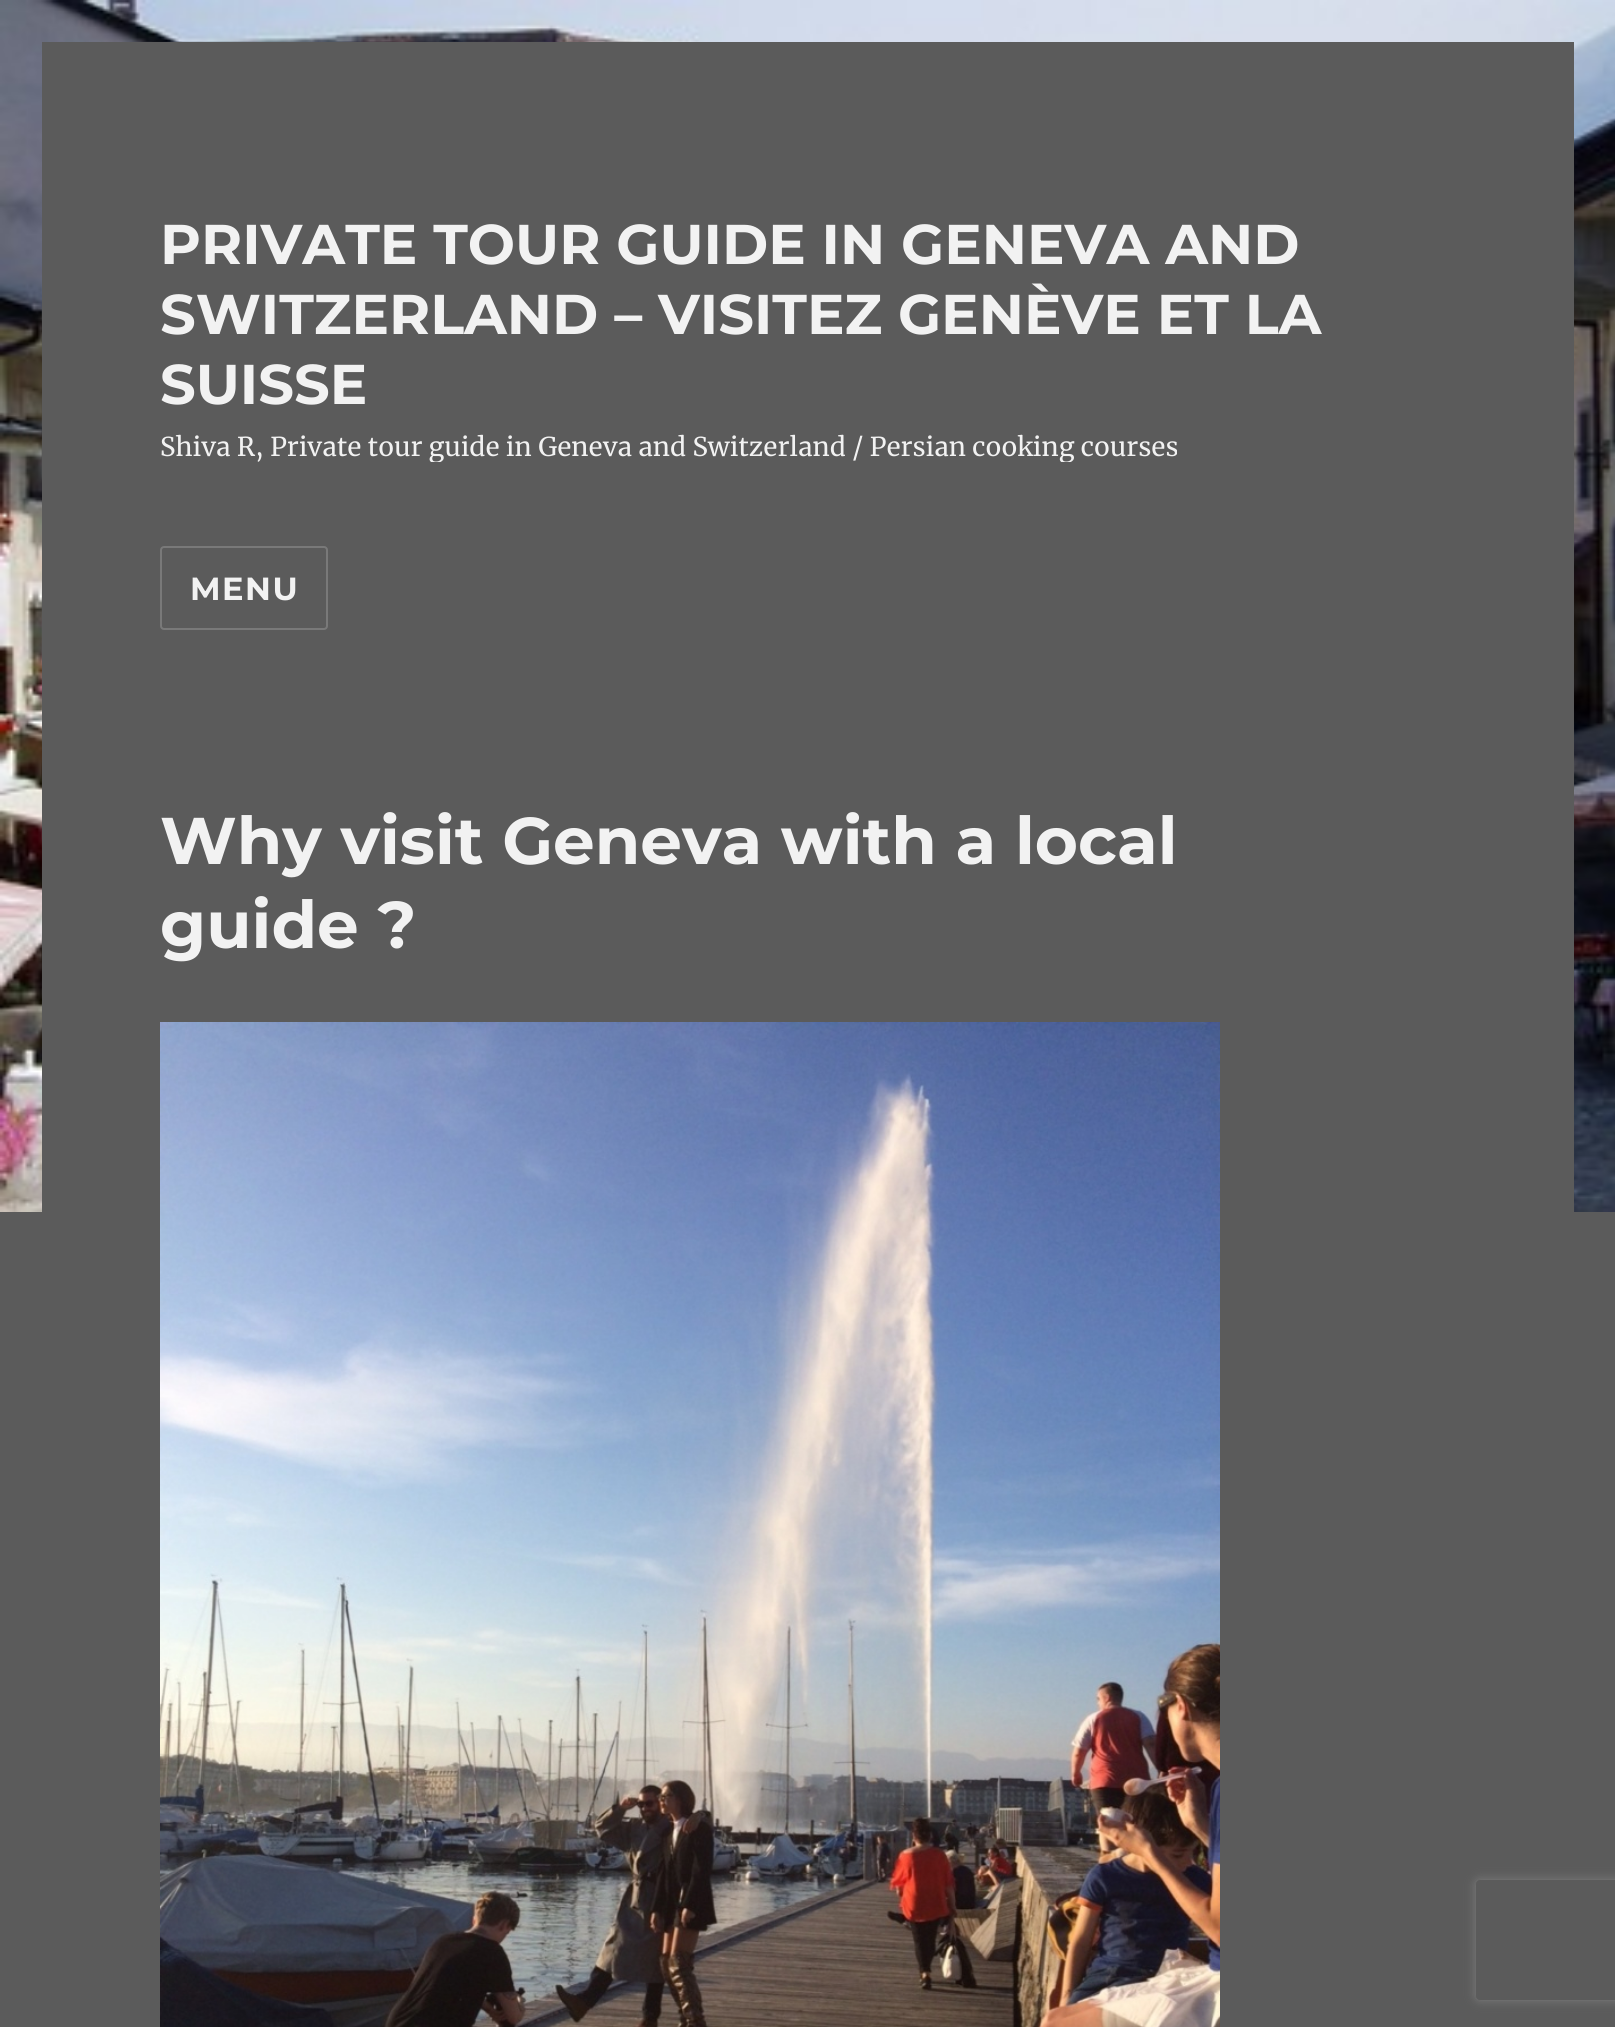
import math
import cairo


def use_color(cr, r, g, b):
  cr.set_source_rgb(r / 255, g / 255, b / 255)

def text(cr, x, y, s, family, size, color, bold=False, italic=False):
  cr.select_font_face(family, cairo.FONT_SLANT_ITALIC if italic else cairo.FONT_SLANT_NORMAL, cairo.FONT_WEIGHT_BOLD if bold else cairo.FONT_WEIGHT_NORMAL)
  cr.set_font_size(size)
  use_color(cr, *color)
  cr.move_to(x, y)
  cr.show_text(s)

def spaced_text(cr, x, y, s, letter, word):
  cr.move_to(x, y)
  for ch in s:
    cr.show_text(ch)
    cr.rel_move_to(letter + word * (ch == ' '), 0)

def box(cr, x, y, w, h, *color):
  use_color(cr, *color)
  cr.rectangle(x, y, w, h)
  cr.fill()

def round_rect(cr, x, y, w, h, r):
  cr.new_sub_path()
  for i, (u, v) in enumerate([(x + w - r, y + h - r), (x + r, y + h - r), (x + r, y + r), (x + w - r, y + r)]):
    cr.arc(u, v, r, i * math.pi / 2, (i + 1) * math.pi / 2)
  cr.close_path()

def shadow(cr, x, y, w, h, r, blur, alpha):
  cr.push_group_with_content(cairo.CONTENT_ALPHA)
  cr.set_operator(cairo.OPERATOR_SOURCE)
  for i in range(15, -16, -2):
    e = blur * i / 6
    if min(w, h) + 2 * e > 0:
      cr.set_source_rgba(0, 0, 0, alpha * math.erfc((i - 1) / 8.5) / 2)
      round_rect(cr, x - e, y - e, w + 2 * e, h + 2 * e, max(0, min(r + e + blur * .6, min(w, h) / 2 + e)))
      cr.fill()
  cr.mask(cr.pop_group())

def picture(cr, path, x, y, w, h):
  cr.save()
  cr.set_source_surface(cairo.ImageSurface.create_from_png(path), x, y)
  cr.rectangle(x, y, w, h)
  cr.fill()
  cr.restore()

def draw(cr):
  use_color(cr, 91, 91, 91)
  cr.paint()
  picture(cr, "img_01.png", 0, 0, 1615, 1212)
  box(cr, 42, 42, 1532, 1170, 91, 91, 91)
  round_rect(cr, 161, 547, 166, 82, 3)
  use_color(cr, 121, 121, 121)
  cr.stroke()
  picture(cr, "img_02.png", 160, 1022, 1060, 1005)
  cr.save()
  cr.set_fill_rule(cairo.FILL_RULE_EVEN_ODD)
  cr.new_path()
  cr.move_to(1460, 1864)
  cr.line_to(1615, 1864)
  cr.line_to(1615, 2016)
  cr.line_to(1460, 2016)
  cr.close_path()
  cr.move_to(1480, 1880)
  cr.line_to(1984, 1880)
  cr.curve_to(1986, 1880, 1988, 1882, 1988, 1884)
  cr.line_to(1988, 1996)
  cr.curve_to(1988, 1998, 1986, 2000, 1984, 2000)
  cr.line_to(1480, 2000)
  cr.curve_to(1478, 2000, 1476, 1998, 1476, 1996)
  cr.line_to(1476, 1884)
  cr.curve_to(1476, 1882, 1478, 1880, 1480, 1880)
  cr.close_path()
  cr.clip()
  use_color(cr, 128, 128, 128)
  shadow(cr, 1476, 1880, 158, 120, 4, 5, 1)
  cr.restore()
  text(cr, 160, 264, "PRIVATE TOUR GUIDE IN GENEVA AND", "Montserrat Thin", 56, (242, 242, 242))
  text(cr, 160, 334, "SWITZERLAND – VISITEZ GENÈVE ET LA", "Montserrat Thin", 56, (242, 242, 242))
  text(cr, 160, 404, "SUISSE", "Montserrat Thin", 56, (242, 242, 242))
  cr.save()
  cr.rectangle(160, 210, 1296, 252)
  cr.clip()
  text(cr, 160, 456, "Shiva R, Private tour guide in Geneva and Switzerland / Persian cooking courses", "Merriweather", 26, (242, 242, 242))
  cr.restore()
  cr.set_font_size(32)
  spaced_text(cr, 190, 600, "MENU", 1.5, 0)
  text(cr, 160, 864, "Why visit Geneva with a local", "Montserrat Thin", 66, (242, 242, 242))
  text(cr, 160, 948, "guide ?", "Montserrat Thin", 66, (242, 242, 242))


surface = cairo.ImageSurface(cairo.FORMAT_RGB24, 1615, 2027)
cr = cairo.Context(surface)
options = cairo.FontOptions()
options.set_hint_metrics(cairo.HINT_METRICS_OFF)
options.set_hint_style(cairo.HINT_STYLE_NONE)
cr.set_font_options(options)
cr.set_miter_limit(4)
draw(cr)
surface.write_to_png("out.png")
